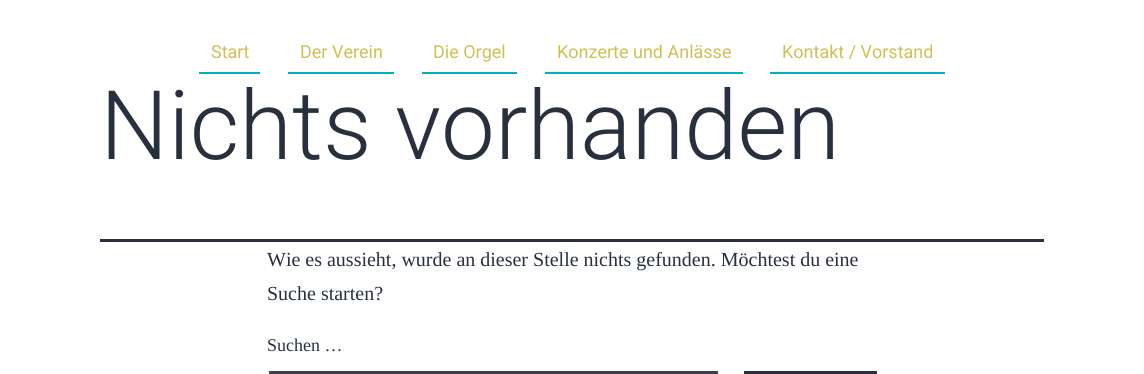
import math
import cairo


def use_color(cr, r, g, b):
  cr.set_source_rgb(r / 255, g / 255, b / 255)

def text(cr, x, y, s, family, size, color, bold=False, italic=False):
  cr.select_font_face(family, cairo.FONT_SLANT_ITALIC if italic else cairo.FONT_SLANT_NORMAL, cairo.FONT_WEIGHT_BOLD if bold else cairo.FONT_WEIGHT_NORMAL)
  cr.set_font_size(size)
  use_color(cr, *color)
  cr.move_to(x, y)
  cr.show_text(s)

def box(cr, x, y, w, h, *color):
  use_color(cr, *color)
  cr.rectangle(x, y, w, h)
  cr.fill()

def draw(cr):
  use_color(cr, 255, 255, 255)
  cr.paint()
  box(cr, 199, 72, 61, 2, 0, 177, 191)
  box(cr, 288, 72, 106, 2, 0, 177, 191)
  box(cr, 422, 72, 95, 2, 0, 177, 191)
  box(cr, 545, 72, 198, 2, 0, 177, 191)
  box(cr, 770, 72, 175, 2, 0, 177, 191)
  box(cr, 100, 239, 944, 3, 40, 48, 61)
  cr.rectangle(270.5, 372.5, 446, 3)
  use_color(cr, 57, 65, 77)
  cr.set_line_width(3)
  cr.stroke()
  box(cr, 744, 371, 133, 3, 40, 48, 61)
  text(cr, 211, 58, "Start", "Roboto", 18, (207, 191, 84))
  text(cr, 300, 58, "Der Verein", "Roboto", 18, (207, 191, 84))
  text(cr, 433, 58, "Die Orgel", "Roboto", 18, (207, 191, 84))
  text(cr, 557, 58, "Konzerte und Anlässe", "Roboto", 18, (207, 191, 84))
  text(cr, 782, 58, "Kontakt / Vorstand", "Roboto", 18, (207, 191, 84))
  text(cr, 100, 159, "Nichts vorhanden", "Roboto Light", 96, (40, 48, 61))
  text(cr, 267, 266, "Wie es aussieht, wurde an dieser Stelle nichts gefunden. Möchtest du eine", "Liberation Serif", 20, (40, 48, 61))
  text(cr, 267, 300, "Suche starten?", "Liberation Serif", 20, (40, 48, 61))
  text(cr, 267, 351, "Suchen …", "Liberation Serif", 18, (40, 48, 61))


surface = cairo.ImageSurface(cairo.FORMAT_RGB24, 1144, 374)
cr = cairo.Context(surface)
options = cairo.FontOptions()
options.set_hint_metrics(cairo.HINT_METRICS_OFF)
options.set_hint_style(cairo.HINT_STYLE_NONE)
cr.set_font_options(options)
cr.set_miter_limit(4)
draw(cr)
surface.write_to_png("out.png")
